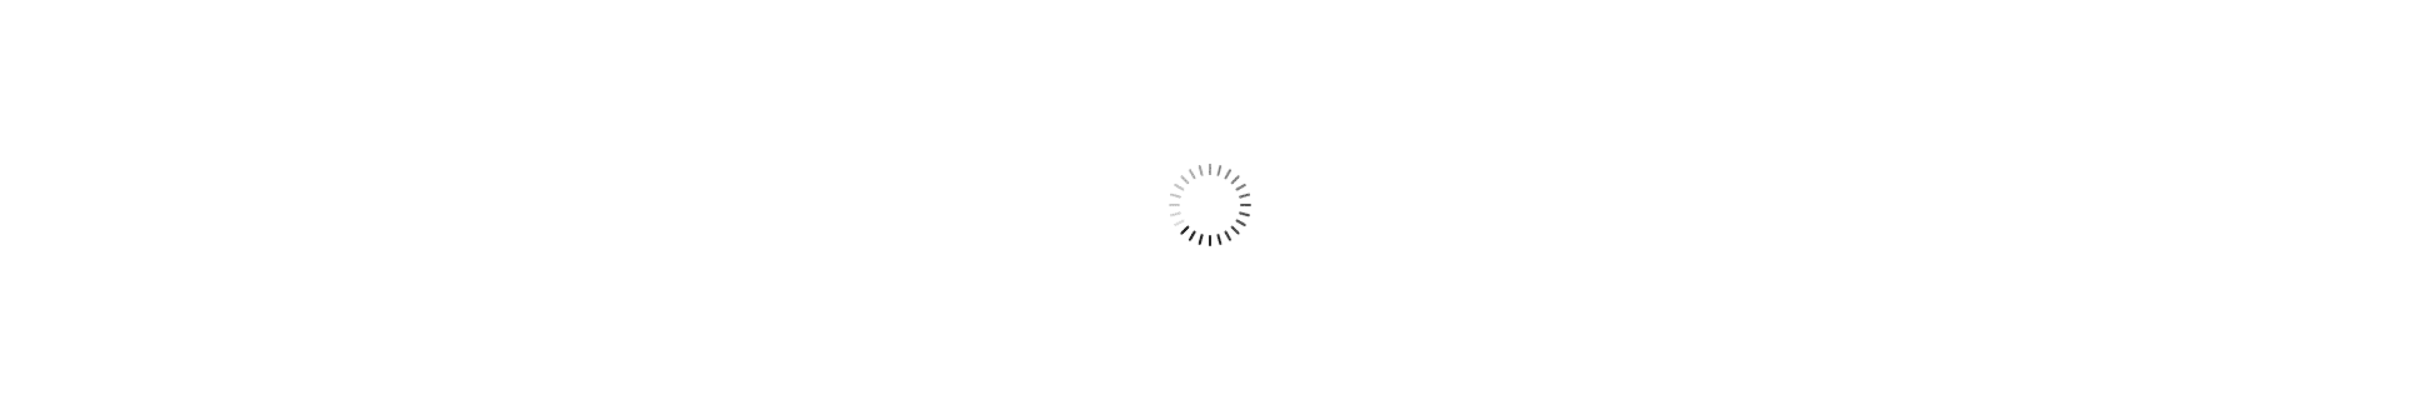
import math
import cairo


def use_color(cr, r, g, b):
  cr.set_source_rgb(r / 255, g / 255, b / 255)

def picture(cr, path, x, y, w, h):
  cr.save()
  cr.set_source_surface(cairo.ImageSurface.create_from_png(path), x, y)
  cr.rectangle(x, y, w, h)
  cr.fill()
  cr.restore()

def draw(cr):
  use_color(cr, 255, 255, 255)
  cr.paint()
  picture(cr, "img_01.png", 1168, 163, 84, 84)


surface = cairo.ImageSurface(cairo.FORMAT_RGB24, 2419, 408)
cr = cairo.Context(surface)
options = cairo.FontOptions()
options.set_hint_metrics(cairo.HINT_METRICS_OFF)
options.set_hint_style(cairo.HINT_STYLE_NONE)
cr.set_font_options(options)
cr.set_miter_limit(4)
draw(cr)
surface.write_to_png("out.png")
